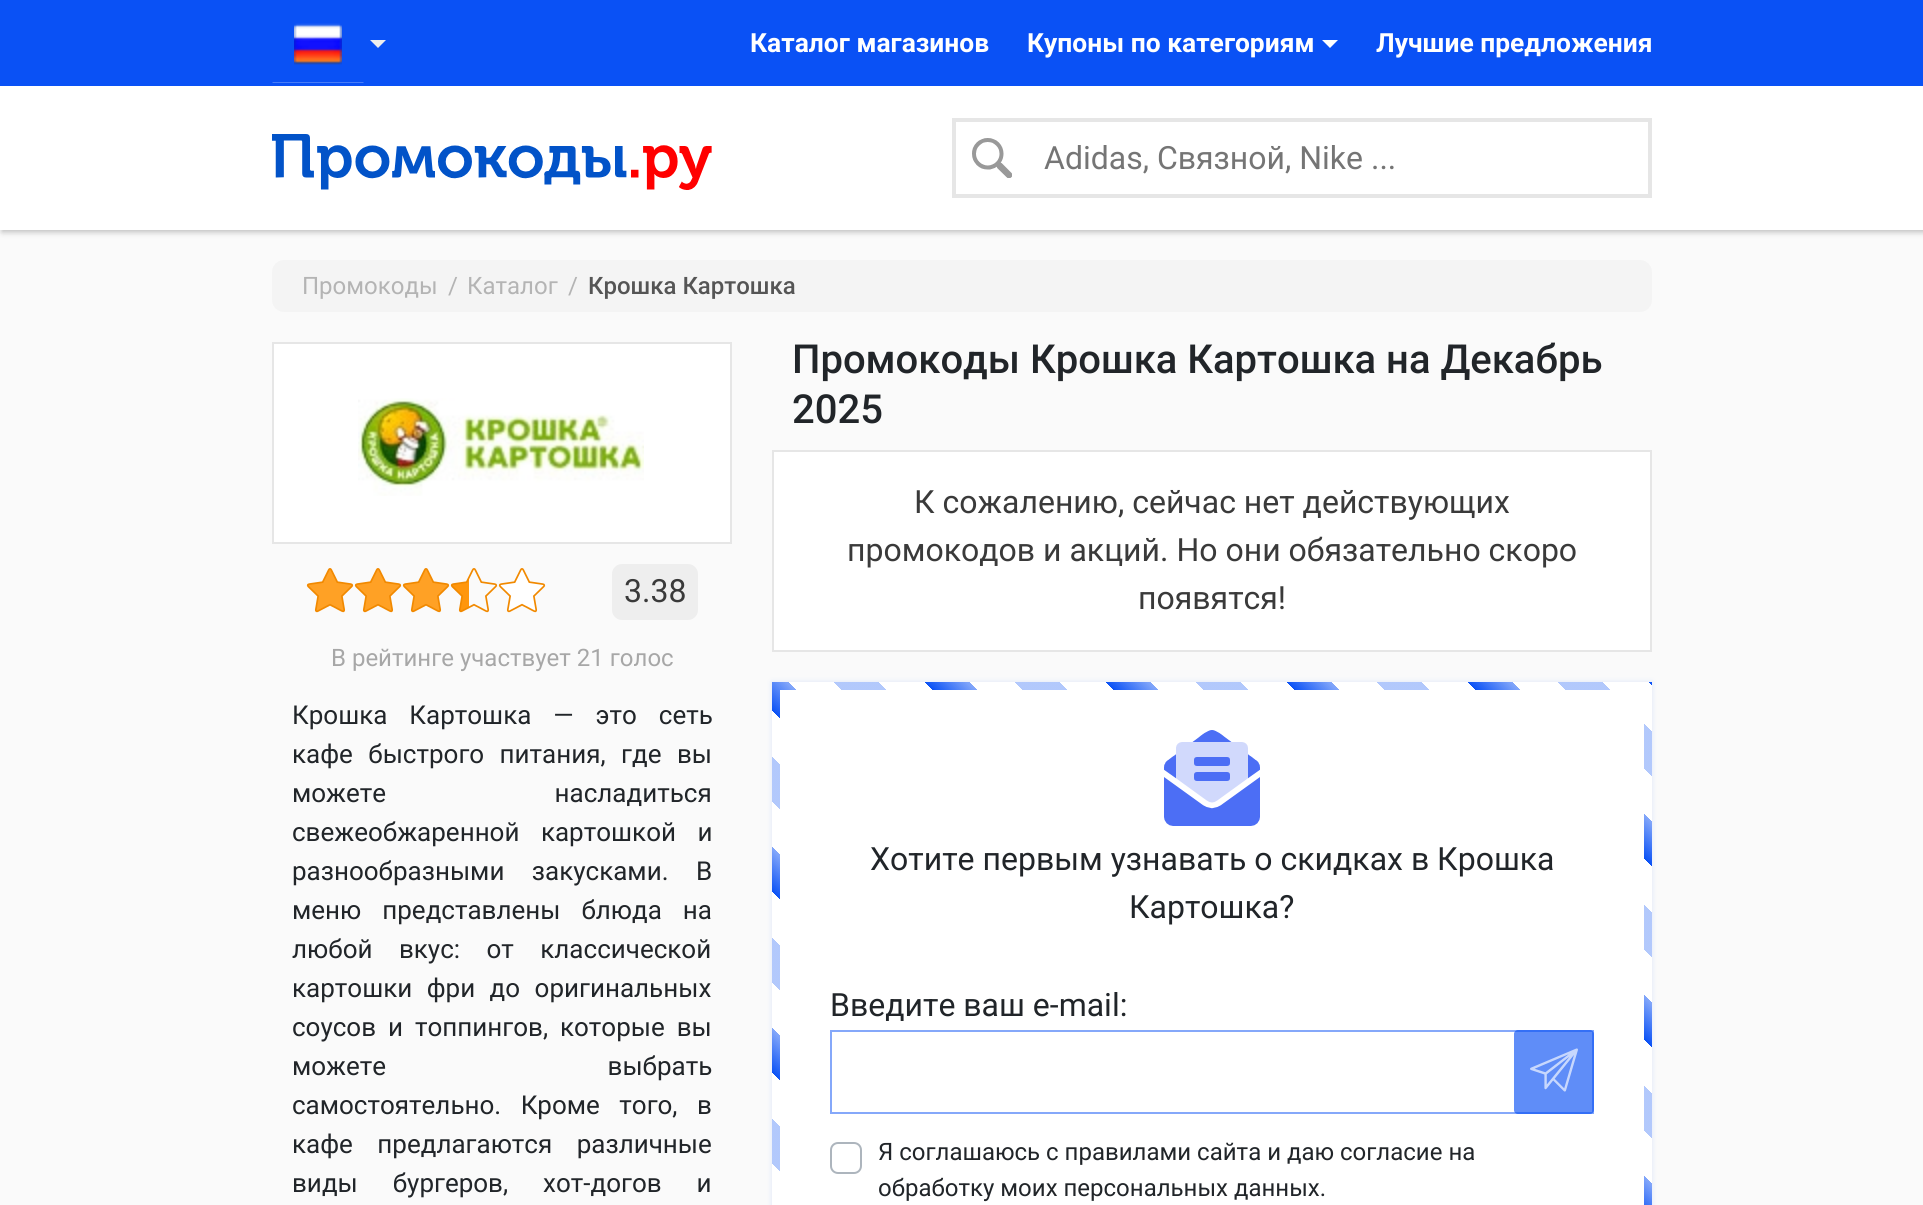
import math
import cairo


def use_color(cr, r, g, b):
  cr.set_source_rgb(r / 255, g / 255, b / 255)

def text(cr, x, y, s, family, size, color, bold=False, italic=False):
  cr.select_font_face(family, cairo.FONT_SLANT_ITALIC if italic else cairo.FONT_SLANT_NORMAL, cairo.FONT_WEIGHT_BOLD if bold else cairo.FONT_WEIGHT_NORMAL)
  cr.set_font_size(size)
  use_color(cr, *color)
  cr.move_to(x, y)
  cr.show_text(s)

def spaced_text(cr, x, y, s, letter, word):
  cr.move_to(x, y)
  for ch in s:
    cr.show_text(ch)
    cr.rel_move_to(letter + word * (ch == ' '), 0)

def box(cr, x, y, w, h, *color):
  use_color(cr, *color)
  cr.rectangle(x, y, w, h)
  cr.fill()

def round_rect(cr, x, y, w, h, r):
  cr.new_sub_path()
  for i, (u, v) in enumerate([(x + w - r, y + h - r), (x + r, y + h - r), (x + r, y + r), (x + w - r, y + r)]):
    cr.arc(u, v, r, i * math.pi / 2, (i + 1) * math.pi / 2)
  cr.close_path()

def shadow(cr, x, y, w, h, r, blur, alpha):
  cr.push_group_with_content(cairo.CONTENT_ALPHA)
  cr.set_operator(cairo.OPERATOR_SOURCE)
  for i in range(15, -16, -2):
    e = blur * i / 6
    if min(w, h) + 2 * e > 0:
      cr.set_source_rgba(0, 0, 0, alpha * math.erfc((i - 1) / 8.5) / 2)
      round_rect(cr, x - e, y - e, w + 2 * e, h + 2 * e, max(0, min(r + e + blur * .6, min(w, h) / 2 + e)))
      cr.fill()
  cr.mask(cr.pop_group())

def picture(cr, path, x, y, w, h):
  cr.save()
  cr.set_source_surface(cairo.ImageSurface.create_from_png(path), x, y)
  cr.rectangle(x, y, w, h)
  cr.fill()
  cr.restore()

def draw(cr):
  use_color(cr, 250, 250, 250)
  cr.paint()
  use_color(cr, 0, 0, 0)
  shadow(cr, 2, 88, 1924, 144, 0, 3, 0.25)
  box(cr, 0, 0, 1923, 86, 10, 81, 245)
  picture(cr, "img_01.png", 294, 23, 48, 42)
  use_color(cr, 238, 238, 238)
  cr.new_path()
  cr.move_to(370, 40)
  cr.line_to(386, 40)
  cr.line_to(378, 48)
  cr.close_path()
  cr.fill()
  use_color(cr, 71, 125, 248)
  cr.new_path()
  cr.move_to(364, 82)
  cr.line_to(363, 83)
  cr.line_to(318, 83)
  cr.line_to(318, 82)
  cr.close_path()
  cr.fill()
  cr.new_path()
  cr.move_to(272, 82)
  cr.line_to(273, 83)
  cr.line_to(318, 83)
  cr.line_to(318, 82)
  cr.close_path()
  cr.fill()
  use_color(cr, 255, 255, 255)
  cr.new_path()
  cr.move_to(1322, 40)
  cr.line_to(1338, 40)
  cr.line_to(1330, 48)
  cr.close_path()
  cr.fill()
  box(cr, 0, 86, 1923, 144, 255, 255, 255)
  picture(cr, "img_02.png", 272, 134, 440, 56)
  cr.rectangle(954, 120, 696, 76)
  use_color(cr, 230, 230, 230)
  cr.set_line_width(4)
  cr.stroke()
  picture(cr, "img_03.png", 972, 138, 40, 40)
  use_color(cr, 244, 244, 244)
  round_rect(cr, 272, 260, 1380, 52, 12)
  cr.fill()
  use_color(cr, 255, 255, 255)
  cr.rectangle(773, 451, 878, 200)
  cr.fill_preserve()
  use_color(cr, 230, 230, 230)
  cr.set_line_width(2)
  cr.stroke()
  use_color(cr, 255, 255, 255)
  cr.rectangle(273, 343, 458, 200)
  cr.fill_preserve()
  use_color(cr, 230, 230, 230)
  cr.stroke()
  picture(cr, "img_04.png", 358, 398, 286, 98)
  picture(cr, "img_05.png", 306, 568, 48, 45)
  picture(cr, "img_05.png", 354, 568, 48, 45)
  picture(cr, "img_05.png", 402, 568, 48, 45)
  picture(cr, "img_06.png", 450, 568, 48, 45)
  picture(cr, "img_07.png", 498, 568, 48, 45)
  use_color(cr, 238, 238, 238)
  round_rect(cr, 612, 564, 86, 56, 10)
  cr.fill()
  use_color(cr, 10, 81, 245)
  shadow(cr, 772, 682, 880, 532, 0, 3, 0.12)
  box(cr, 772, 682, 880, 523, 255, 255, 255)
  picture(cr, "img_08.png", 772, 682, 880, 523)
  picture(cr, "img_09.png", 1164, 730, 96, 96)
  cr.rectangle(831, 1031, 762, 82)
  use_color(cr, 133, 168, 250)
  cr.stroke()
  cr.set_source_rgba(0.039, 0.318, 0.961, 0.65)
  round_rect(cr, 1514, 1030, 80, 84, 4)
  cr.fill()
  picture(cr, "img_10.png", 1530, 1048, 48, 44)
  round_rect(cr, 831, 1143, 30, 30, 7)
  use_color(cr, 173, 181, 189)
  cr.stroke()
  text(cr, 750, 52, "Каталог магазинов", "Roboto", 26.4, (255, 255, 255), bold=True)
  text(cr, 1027, 52, "Купоны по категориям", "Roboto", 26.4, (255, 255, 255), bold=True)
  text(cr, 1376, 52, "Лучшие предложения", "Roboto", 26.4, (255, 255, 255), bold=True)
  text(cr, 1044, 169, "Adidas, Связной, Nike ...", "Roboto", 32, (117, 117, 117))
  text(cr, 302, 294, "Промокоды", "Roboto", 24, (180, 180, 180))
  text(cr, 448, 294, "/", "Roboto", 24, (180, 180, 180))
  text(cr, 467, 294, "Каталог", "Roboto", 24, (180, 180, 180))
  text(cr, 568, 294, "/", "Roboto", 24, (180, 180, 180))
  text(cr, 588, 294, "Крошка Картошка", "Roboto Medium", 24, (85, 85, 85))
  text(cr, 792, 373, "Промокоды Крошка Картошка на Декабрь", "Roboto Medium", 40, (33, 37, 41))
  text(cr, 792, 423, "2025", "Roboto Medium", 40, (33, 37, 41))
  text(cr, 914, 513, "К сожалению, сейчас нет действующих", "Roboto", 32, (58, 58, 58))
  text(cr, 847, 561, "промокодов и акций. Но они обязательно скоро", "Roboto", 32, (58, 58, 58))
  text(cr, 1138, 609, "появятся!", "Roboto", 32, (58, 58, 58))
  text(cr, 624, 602, "3.38", "Roboto", 32, (58, 58, 58))
  text(cr, 331, 666, "В рейтинге участвует 21 голос", "Roboto", 24, (167, 167, 167))
  cr.set_font_size(26)
  use_color(cr, 33, 37, 41)
  spaced_text(cr, 292, 724, "Крошка Картошка — это сеть", 0, 15.5)
  spaced_text(cr, 292, 763, "кафе быстрого питания, где вы", 0, 9)
  spaced_text(cr, 292, 802, "можете насладиться", 0, 162)
  spaced_text(cr, 292, 841, "свежеобжаренной картошкой и", 0, 15)
  spaced_text(cr, 292, 880, "разнообразными закусками. В", 0, 21)
  spaced_text(cr, 292, 919, "меню представлены блюда на", 0, 14.5)
  spaced_text(cr, 292, 958, "любой вкус: от классической", 0, 20)
  spaced_text(cr, 292, 997, "картошки фри до оригинальных", 0, 8)
  spaced_text(cr, 292, 1036, "соусов и топпингов, которые вы", 0, 5.5)
  spaced_text(cr, 292, 1075, "можете выбрать", 0, 215)
  spaced_text(cr, 292, 1114, "самостоятельно. Кроме того, в", 0, 13)
  spaced_text(cr, 292, 1153, "кафе предлагаются различные", 0, 18)
  spaced_text(cr, 292, 1192, "виды бургеров, хот-догов и", 0, 28.5)
  text(cr, 870, 870, "Хотите первым узнавать о скидках в Крошка", "Roboto", 32, (33, 37, 41))
  text(cr, 1129, 918, "Картошка?", "Roboto", 32, (33, 37, 41))
  text(cr, 830, 1016, "Введите ваш e-mail:", "Roboto", 32, (33, 37, 41))
  text(cr, 878, 1160, "Я соглашаюсь с правилами сайта и даю согласие на", "Roboto", 24, (33, 37, 41))
  text(cr, 878, 1196, "обработку моих персональных данных.", "Roboto", 24, (33, 37, 41))


surface = cairo.ImageSurface(cairo.FORMAT_RGB24, 1923, 1205)
cr = cairo.Context(surface)
options = cairo.FontOptions()
options.set_hint_metrics(cairo.HINT_METRICS_OFF)
options.set_hint_style(cairo.HINT_STYLE_NONE)
cr.set_font_options(options)
cr.set_miter_limit(4)
draw(cr)
surface.write_to_png("out.png")
